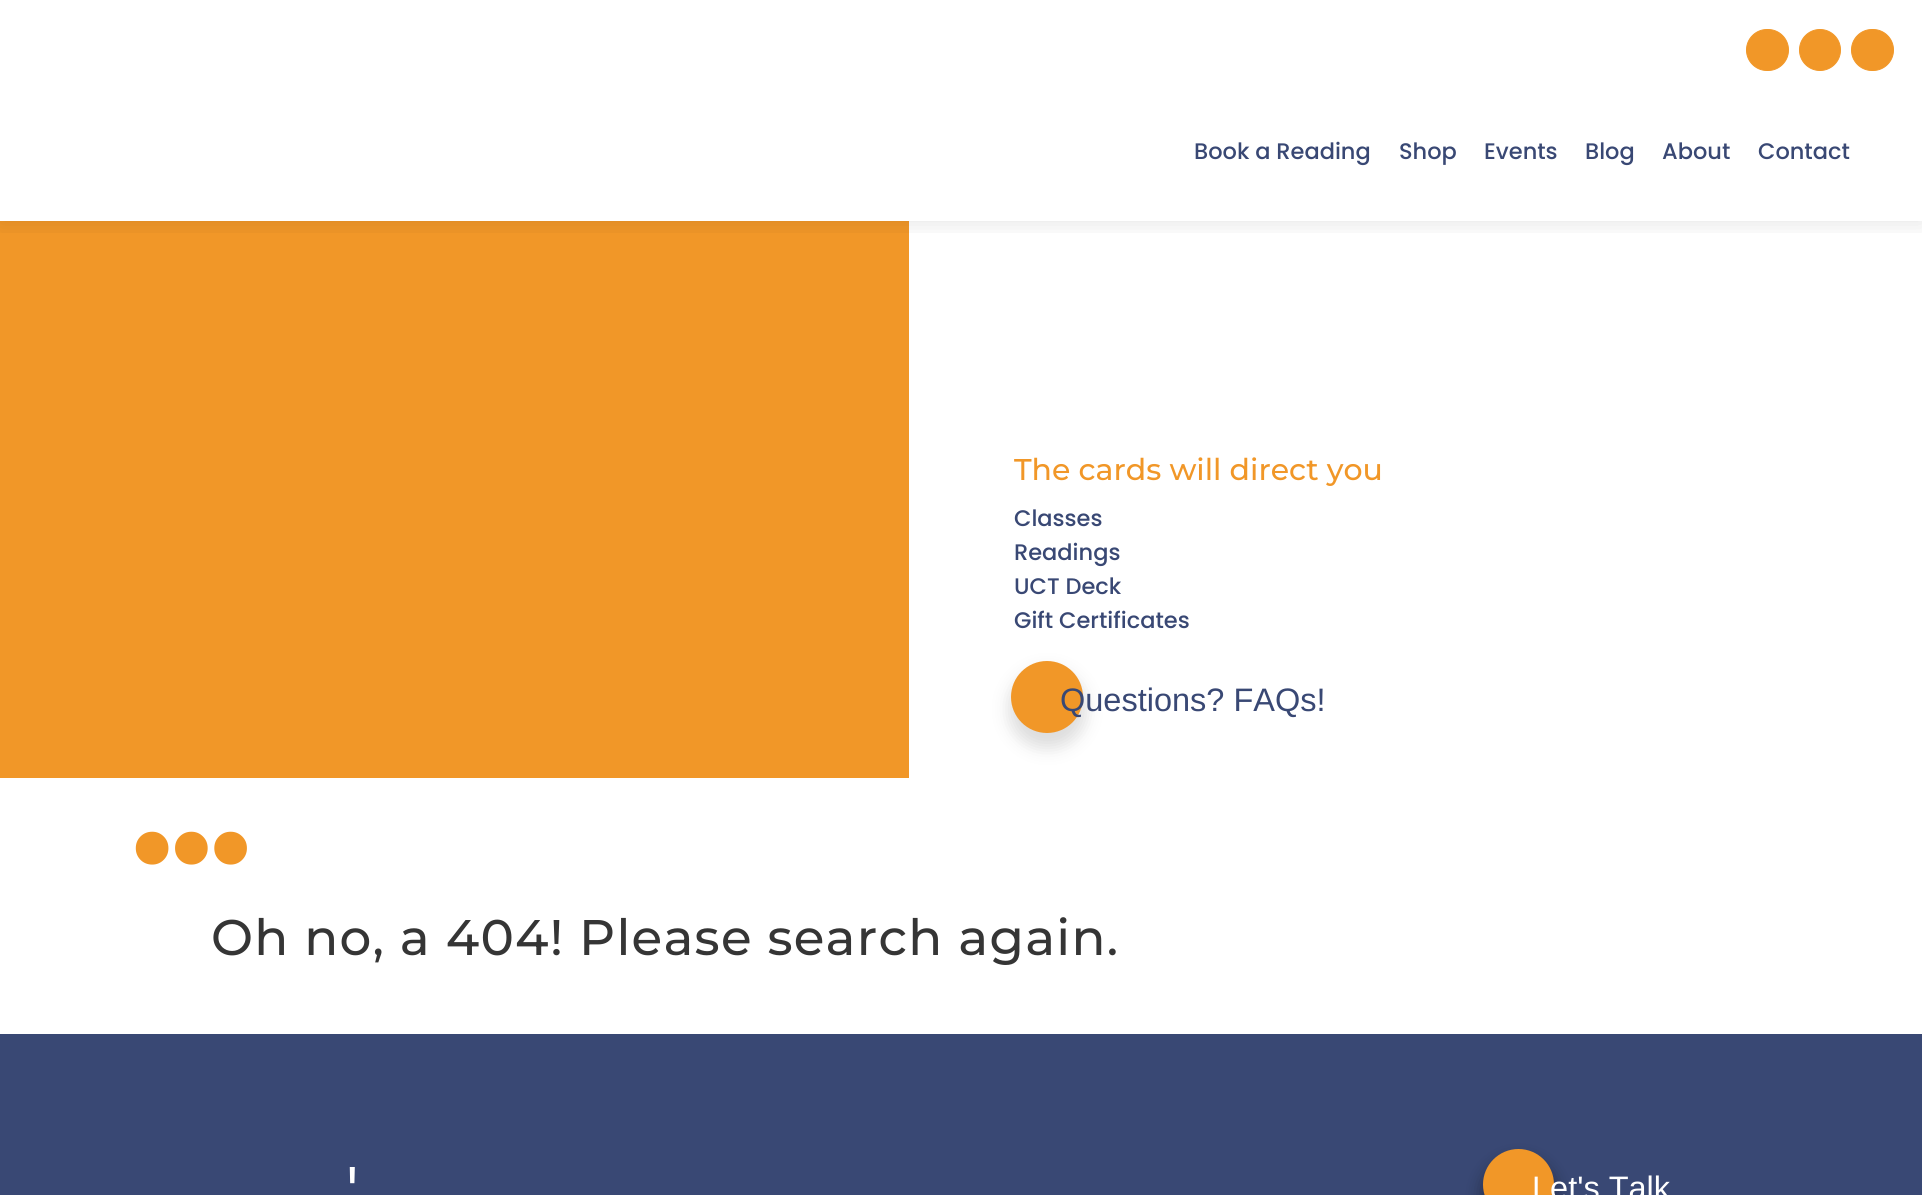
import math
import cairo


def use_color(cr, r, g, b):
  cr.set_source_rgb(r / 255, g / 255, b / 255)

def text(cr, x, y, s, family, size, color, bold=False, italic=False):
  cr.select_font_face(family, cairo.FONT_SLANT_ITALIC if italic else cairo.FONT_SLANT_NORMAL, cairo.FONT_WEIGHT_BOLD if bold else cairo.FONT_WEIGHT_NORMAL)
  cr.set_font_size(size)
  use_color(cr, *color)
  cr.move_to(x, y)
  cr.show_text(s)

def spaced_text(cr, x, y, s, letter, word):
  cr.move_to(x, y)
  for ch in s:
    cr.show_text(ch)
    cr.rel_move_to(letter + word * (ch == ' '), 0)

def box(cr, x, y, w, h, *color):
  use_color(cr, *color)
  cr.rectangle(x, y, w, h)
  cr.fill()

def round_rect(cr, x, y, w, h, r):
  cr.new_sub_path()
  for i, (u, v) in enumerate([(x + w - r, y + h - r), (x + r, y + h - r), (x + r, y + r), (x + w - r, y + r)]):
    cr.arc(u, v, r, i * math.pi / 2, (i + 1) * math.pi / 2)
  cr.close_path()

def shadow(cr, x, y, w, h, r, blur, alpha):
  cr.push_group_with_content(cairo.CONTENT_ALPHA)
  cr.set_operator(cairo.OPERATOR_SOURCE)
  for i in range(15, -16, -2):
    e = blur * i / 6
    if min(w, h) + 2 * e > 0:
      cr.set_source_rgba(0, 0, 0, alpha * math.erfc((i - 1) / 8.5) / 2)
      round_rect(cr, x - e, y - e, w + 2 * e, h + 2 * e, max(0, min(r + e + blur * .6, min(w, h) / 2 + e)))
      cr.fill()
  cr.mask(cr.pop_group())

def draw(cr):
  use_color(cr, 255, 255, 255)
  cr.paint()
  box(cr, 0, 221, 909, 557, 241, 151, 40)
  cr.save()
  cr.rectangle(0, 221, 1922, 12)
  cr.clip()
  use_color(cr, 0, 0, 0)
  shadow(cr, 0, 3, 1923, 221, 0, 11, 0.1)
  cr.restore()
  round_rect(cr, 1746.5, 29.5, 42, 41, 20.5)
  cr.fill_preserve()
  cr.set_line_width(1)
  cr.stroke()
  cr.arc(1820, 50, 20.5, 0, 2 * math.pi)
  cr.fill_preserve()
  cr.stroke()
  round_rect(cr, 1851.5, 29.5, 42, 41, 20.5)
  cr.fill_preserve()
  cr.stroke()
  use_color(cr, 221, 221, 221)
  shadow(cr, 1009, 670, 77, 78, 38.5, 8, 1)
  use_color(cr, 241, 151, 40)
  cr.arc(1047, 697, 36, 0, 2 * math.pi)
  cr.fill()
  box(cr, 0, 1034, 1922, 161, 57, 72, 116)
  use_color(cr, 0, 0, 0)
  shadow(cr, 1480, 1158, 78, 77, 38.5, 8, 0.3)
  use_color(cr, 241, 151, 40)
  cr.arc(1518.5, 1184.5, 35.5, 0, 2 * math.pi)
  cr.fill()
  text(cr, 1194, 159, "Book a Reading", "Poppins Medium", 22.5, (57, 72, 116))
  text(cr, 1399, 159, "Shop", "Poppins Medium", 22.5, (57, 72, 116))
  text(cr, 1484, 159, "Events", "Poppins Medium", 22.5, (57, 72, 116))
  text(cr, 1585, 159, "Blog", "Poppins Medium", 22.5, (57, 72, 116))
  text(cr, 1662, 159, "About", "Poppins Medium", 22.5, (57, 72, 116))
  text(cr, 1758, 159, "Contact", "Poppins Medium", 22.5, (57, 72, 116))
  text(cr, 1014, 480, "The cards will direct you", "Montserrat Thin", 30, (241, 151, 40))
  text(cr, 1014, 526, "Classes", "Poppins Medium", 22.5, (57, 72, 116))
  text(cr, 1014, 560, "Readings", "Poppins Medium", 22.5, (57, 72, 116))
  text(cr, 1014, 594, "UCT Deck", "Poppins Medium", 22.5, (57, 72, 116))
  text(cr, 1014, 628, "Gift Certificates", "Poppins Medium", 22.5, (57, 72, 116))
  text(cr, 1060, 711, "Questions? FAQs!", "Liberation Sans", 32.5, (57, 72, 116))
  cr.select_font_face("Poppins Medium")
  cr.set_font_size(225)
  use_color(cr, 241, 151, 40)
  spaced_text(cr, 125, 863, "...", -15, 0)
  cr.select_font_face("Montserrat Thin")
  cr.set_font_size(50)
  use_color(cr, 53, 53, 53)
  spaced_text(cr, 211, 955, "Oh no, a 404! Please search again.", 1.25, 0)
  cr.set_font_size(60)
  use_color(cr, 255, 255, 255)
  spaced_text(cr, 346, 1209, "'", 1.25, 0)
  text(cr, 1532, 1199, "Let's Talk", "Liberation Sans", 32.5, (255, 255, 255))


surface = cairo.ImageSurface(cairo.FORMAT_RGB24, 1922, 1195)
cr = cairo.Context(surface)
options = cairo.FontOptions()
options.set_hint_metrics(cairo.HINT_METRICS_OFF)
options.set_hint_style(cairo.HINT_STYLE_NONE)
cr.set_font_options(options)
cr.set_miter_limit(4)
draw(cr)
surface.write_to_png("out.png")
